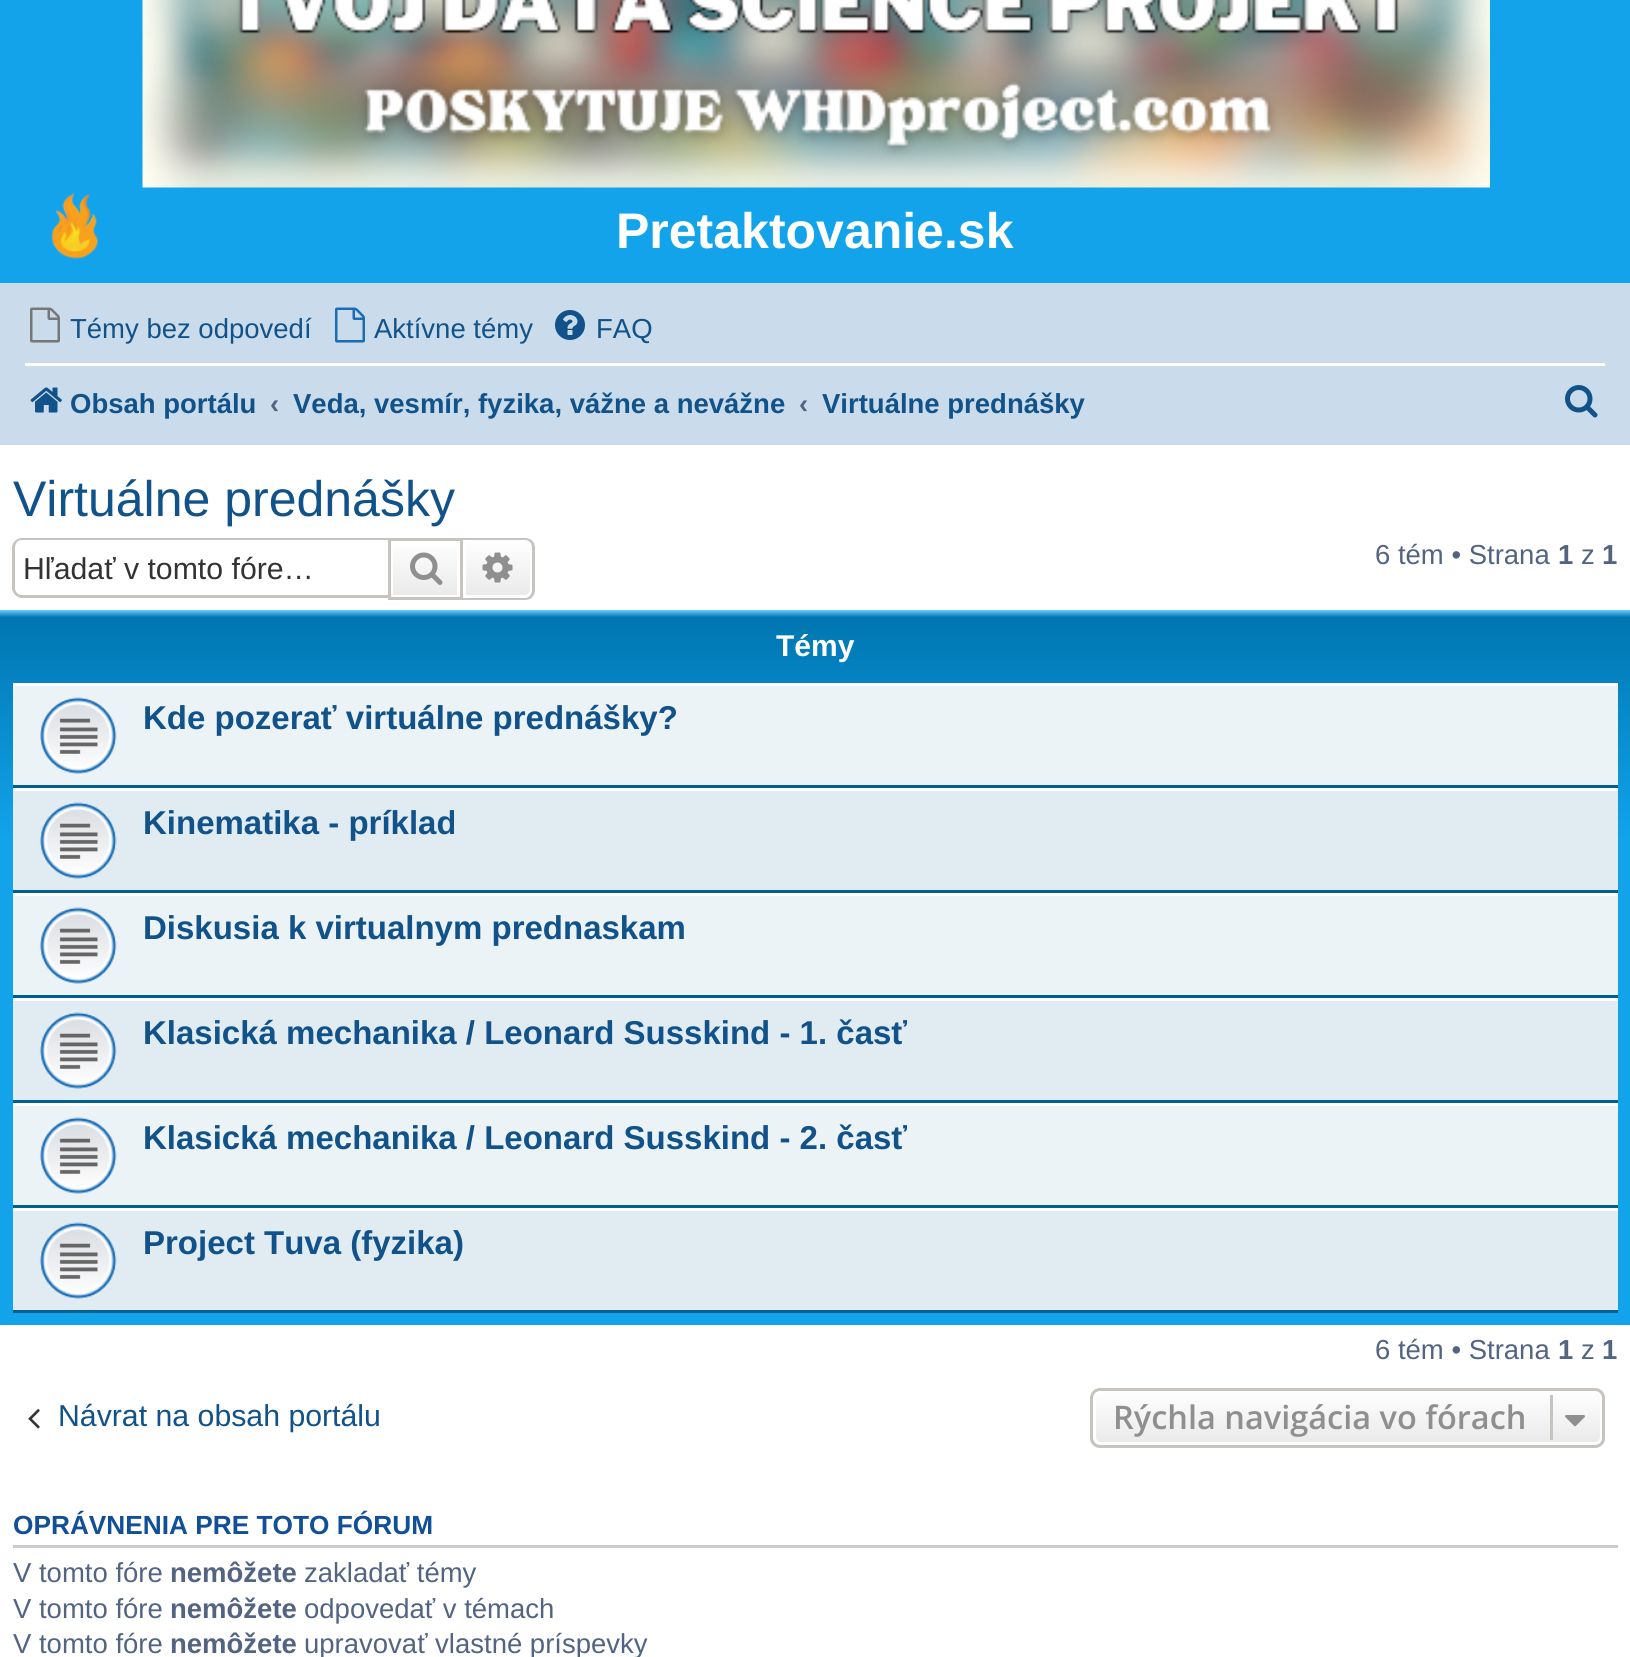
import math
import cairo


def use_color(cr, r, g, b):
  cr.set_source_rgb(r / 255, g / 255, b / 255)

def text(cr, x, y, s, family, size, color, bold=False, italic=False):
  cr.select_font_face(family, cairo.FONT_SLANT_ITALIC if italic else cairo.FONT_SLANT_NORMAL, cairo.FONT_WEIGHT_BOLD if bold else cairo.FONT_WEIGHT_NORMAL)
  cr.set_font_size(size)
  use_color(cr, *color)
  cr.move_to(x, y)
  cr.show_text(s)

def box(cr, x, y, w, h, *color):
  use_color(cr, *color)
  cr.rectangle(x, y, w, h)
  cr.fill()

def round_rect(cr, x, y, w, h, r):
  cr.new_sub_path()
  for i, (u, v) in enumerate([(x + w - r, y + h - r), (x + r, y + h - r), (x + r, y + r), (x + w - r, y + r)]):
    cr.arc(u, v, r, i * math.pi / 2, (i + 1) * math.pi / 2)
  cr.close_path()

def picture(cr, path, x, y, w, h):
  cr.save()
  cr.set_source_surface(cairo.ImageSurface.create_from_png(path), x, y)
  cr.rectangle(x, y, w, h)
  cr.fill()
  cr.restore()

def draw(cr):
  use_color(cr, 255, 255, 255)
  cr.paint()
  box(cr, 0, 0, 1630, 283, 18, 163, 235)
  picture(cr, "img_01.png", 142, 0, 1348, 188)
  picture(cr, "img_02.png", 51, 192, 47, 67)
  box(cr, 0, 283, 1630, 162, 202, 220, 235)
  picture(cr, "img_03.png", 30, 307, 30, 36)
  picture(cr, "img_04.png", 335, 307, 30, 36)
  picture(cr, "img_05.png", 555, 310, 30, 30)
  box(cr, 25, 363, 1580, 3, 255, 255, 255)
  picture(cr, "img_06.png", 30, 387, 32, 26)
  picture(cr, "img_07.png", 1565, 385, 33, 33)
  use_color(cr, 199, 195, 191)
  cr.set_fill_rule(cairo.FILL_RULE_EVEN_ODD)
  cr.new_path()
  cr.move_to(22, 538)
  cr.line_to(388, 538)
  cr.line_to(388, 598)
  cr.line_to(22, 598)
  cr.curve_to(17, 598, 12, 593, 12, 588)
  cr.line_to(12, 548)
  cr.curve_to(12, 542, 17, 538, 22, 538)
  cr.close_path()
  cr.move_to(22, 540)
  cr.line_to(388, 540)
  cr.line_to(388, 595)
  cr.line_to(22, 595)
  cr.curve_to(18, 595, 15, 592, 15, 588)
  cr.line_to(15, 548)
  cr.curve_to(15, 543, 18, 540, 22, 540)
  cr.close_path()
  cr.fill()
  gradient = cairo.LinearGradient(425, 540, 425, 598)
  gradient.add_color_stop_rgba(0, 1, 1, 1, 1)
  gradient.add_color_stop_rgba(1, 0.914, 0.914, 0.914, 1)
  cr.set_source(gradient)
  cr.rectangle(393, 547, 64, 48)
  cr.fill()
  cr.rectangle(389.5, 539.5, 72, 59)
  use_color(cr, 199, 195, 191)
  cr.set_line_width(3)
  cr.stroke()
  picture(cr, "img_08.png", 410, 552, 33, 33)
  gradient = cairo.LinearGradient(498, 540, 498, 598)
  gradient.add_color_stop_rgba(0, 1, 1, 1, 1)
  gradient.add_color_stop_rgba(1, 0.914, 0.914, 0.914, 1)
  cr.set_source(gradient)
  cr.new_path()
  cr.move_to(464.5, 541.5)
  cr.line_to(525, 541.5)
  cr.curve_to(528.5, 541.5, 531.5, 544.5, 531.5, 548)
  cr.line_to(531.5, 590)
  cr.curve_to(531.5, 593.5, 528.5, 596.5, 525, 596.5)
  cr.line_to(464.5, 596.5)
  cr.close_path()
  cr.fill_preserve()
  use_color(cr, 255, 255, 255)
  cr.stroke()
  use_color(cr, 199, 195, 191)
  cr.new_path()
  cr.move_to(462, 538)
  cr.line_to(525, 538)
  cr.curve_to(531, 538, 535, 542, 535, 548)
  cr.line_to(535, 590)
  cr.curve_to(535, 596, 531, 600, 525, 600)
  cr.line_to(462, 600)
  cr.close_path()
  cr.move_to(462, 540)
  cr.line_to(525, 540)
  cr.curve_to(529, 540, 532, 543, 532, 548)
  cr.line_to(532, 590)
  cr.curve_to(532, 594, 529, 598, 525, 598)
  cr.line_to(462, 598)
  cr.close_path()
  cr.fill()
  picture(cr, "img_09.png", 482, 552, 31, 31)
  gradient = cairo.LinearGradient(815, 610, 815, 1325)
  gradient.add_color_stop_rgba(0, 0.416, 0.808, 1, 1)
  gradient.add_color_stop_rgba(0.01, 0, 0.463, 0.694, 1)
  gradient.add_color_stop_rgba(0.32, 0.071, 0.639, 0.922, 1)
  gradient.add_color_stop_rgba(1, 0.071, 0.639, 0.922, 1)
  cr.set_source(gradient)
  cr.rectangle(0, 610, 1630, 715)
  cr.fill()
  box(cr, 13, 686, 1605, 99, 236, 243, 247)
  box(cr, 13, 683, 1605, 3, 255, 255, 255)
  box(cr, 13, 785, 1605, 3, 0, 96, 143)
  picture(cr, "img_10.png", 39, 697, 78, 77)
  box(cr, 13, 791, 1605, 99, 225, 235, 242)
  box(cr, 13, 788, 1605, 3, 255, 255, 255)
  box(cr, 13, 890, 1605, 3, 0, 96, 143)
  picture(cr, "img_11.png", 39, 802, 78, 77)
  box(cr, 13, 896, 1605, 99, 236, 243, 247)
  box(cr, 13, 893, 1605, 3, 255, 255, 255)
  box(cr, 13, 995, 1605, 3, 0, 96, 143)
  picture(cr, "img_12.png", 39, 907, 78, 77)
  box(cr, 13, 1001, 1605, 99, 225, 235, 242)
  box(cr, 13, 998, 1605, 3, 255, 255, 255)
  box(cr, 13, 1100, 1605, 3, 0, 96, 143)
  picture(cr, "img_11.png", 39, 1012, 78, 77)
  box(cr, 13, 1106, 1605, 99, 236, 243, 247)
  box(cr, 13, 1103, 1605, 3, 255, 255, 255)
  box(cr, 13, 1205, 1605, 3, 0, 96, 143)
  picture(cr, "img_12.png", 39, 1117, 78, 77)
  box(cr, 13, 1211, 1605, 99, 225, 235, 242)
  box(cr, 13, 1208, 1605, 3, 255, 255, 255)
  box(cr, 13, 1310, 1605, 3, 0, 96, 143)
  picture(cr, "img_11.png", 39, 1222, 78, 77)
  picture(cr, "img_13.png", 28, 1409, 12, 20)
  cr.save()
  cr.set_fill_rule(cairo.FILL_RULE_WINDING)
  round_rect(cr, 1090, 1388, 515, 60, 10)
  cr.clip()
  gradient = cairo.LinearGradient(1348, 1390, 1348, 1445)
  gradient.add_color_stop_rgba(0, 1, 1, 1, 1)
  gradient.add_color_stop_rgba(1, 0.914, 0.914, 0.914, 1)
  cr.set_source(gradient)
  cr.rectangle(1090, 1390, 515, 55)
  cr.fill()
  cr.restore()
  round_rect(cr, 1094.5, 1391.5, 507, 52, 6.5)
  use_color(cr, 255, 255, 255)
  cr.stroke()
  round_rect(cr, 1091.5, 1389.5, 512, 57, 8.5)
  use_color(cr, 199, 195, 191)
  cr.stroke()
  box(cr, 1550, 1395, 3, 45, 199, 195, 191)
  picture(cr, "img_14.png", 1565, 1415, 20, 12)
  box(cr, 13, 1545, 1605, 3, 204, 204, 204)
  text(cr, 616, 248, "Pretaktovanie.sk", "Liberation Sans", 50, (255, 255, 255), bold=True)
  text(cr, 70, 338, "Témy bez odpovedí", "Liberation Sans", 27.5, (16, 82, 137))
  text(cr, 374, 338, "Aktívne témy", "Liberation Sans", 27.5, (16, 82, 137))
  text(cr, 596, 338, "FAQ", "Liberation Sans", 27.5, (16, 82, 137))
  text(cr, 70, 413, "Obsah portálu", "Liberation Sans", 27.5, (16, 82, 137), bold=True)
  text(cr, 270, 413, "‹", "Liberation Sans", 27.5, (83, 100, 130), bold=True)
  text(cr, 293, 413, "Veda, vesmír, fyzika, vážne a nevážne", "Liberation Sans", 27.5, (16, 82, 137), bold=True)
  text(cr, 799, 413, "‹", "Liberation Sans", 27.5, (83, 100, 130), bold=True)
  text(cr, 822, 413, "Virtuálne prednášky", "Liberation Sans", 27.5, (16, 82, 137), bold=True)
  text(cr, 13, 516, "Virtuálne prednášky", "Liberation Sans", 50, (16, 82, 137))
  text(cr, 23, 579, "Hľadať v tomto fóre…", "Liberation Sans", 30.25, (51, 51, 51))
  text(cr, 1375, 564, "6 tém • Strana", "Liberation Sans", 27.5, (83, 100, 130))
  text(cr, 1558, 564, "1", "Liberation Sans", 27.5, (83, 100, 130), bold=True)
  text(cr, 1581, 564, "z", "Liberation Sans", 27.5, (83, 100, 130))
  text(cr, 1602, 564, "1", "Liberation Sans", 27.5, (83, 100, 130), bold=True)
  text(cr, 776, 656, "Témy", "Liberation Sans", 30, (255, 255, 255), bold=True)
  text(cr, 143, 729, "Kde pozerať virtuálne prednášky?", "Liberation Sans", 33, (16, 82, 137), bold=True)
  text(cr, 143, 834, "Kinematika - príklad", "Liberation Sans", 33, (16, 82, 137), bold=True)
  text(cr, 143, 939, "Diskusia k virtualnym prednaskam", "Liberation Sans", 33, (16, 82, 137), bold=True)
  text(cr, 143, 1044, "Klasická mechanika / Leonard Susskind - 1. časť", "Liberation Sans", 33, (16, 82, 137), bold=True)
  text(cr, 143, 1149, "Klasická mechanika / Leonard Susskind - 2. časť", "Liberation Sans", 33, (16, 82, 137), bold=True)
  text(cr, 143, 1254, "Project Tuva (fyzika)", "Liberation Sans", 33, (16, 82, 137), bold=True)
  text(cr, 1375, 1359, "6 tém • Strana", "Liberation Sans", 27.5, (83, 100, 130))
  text(cr, 1558, 1359, "1", "Liberation Sans", 27.5, (83, 100, 130), bold=True)
  text(cr, 1581, 1359, "z", "Liberation Sans", 27.5, (83, 100, 130))
  text(cr, 1602, 1359, "1", "Liberation Sans", 27.5, (83, 100, 130), bold=True)
  text(cr, 58, 1426, "Návrat na obsah portálu", "Liberation Sans", 30.25, (16, 82, 137))
  text(cr, 1113, 1429, "Rýchla navigácia vo fórach", "Open Sans SemiBold", 32.5, (143, 143, 143))
  text(cr, 13, 1534, "OPRÁVNENIA PRE TOTO FÓRUM", "Liberation Sans", 26.25, (17, 80, 152), bold=True)
  text(cr, 13, 1582, "V tomto fóre", "Liberation Sans", 27.5, (83, 100, 130))
  text(cr, 170, 1582, "nemôžete", "Liberation Sans", 27.5, (83, 100, 130), bold=True)
  text(cr, 304, 1582, "zakladať témy", "Liberation Sans", 27.5, (83, 100, 130))
  text(cr, 13, 1618, "V tomto fóre", "Liberation Sans", 27.5, (83, 100, 130))
  text(cr, 170, 1618, "nemôžete", "Liberation Sans", 27.5, (83, 100, 130), bold=True)
  text(cr, 304, 1618, "odpovedať v témach", "Liberation Sans", 27.5, (83, 100, 130))
  text(cr, 13, 1653, "V tomto fóre", "Liberation Sans", 27.5, (83, 100, 130))
  text(cr, 170, 1653, "nemôžete", "Liberation Sans", 27.5, (83, 100, 130), bold=True)
  text(cr, 304, 1653, "upravovať vlastné príspevky", "Liberation Sans", 27.5, (83, 100, 130))


surface = cairo.ImageSurface(cairo.FORMAT_RGB24, 1630, 1657)
cr = cairo.Context(surface)
options = cairo.FontOptions()
options.set_hint_metrics(cairo.HINT_METRICS_OFF)
options.set_hint_style(cairo.HINT_STYLE_NONE)
cr.set_font_options(options)
cr.set_miter_limit(4)
draw(cr)
surface.write_to_png("out.png")
